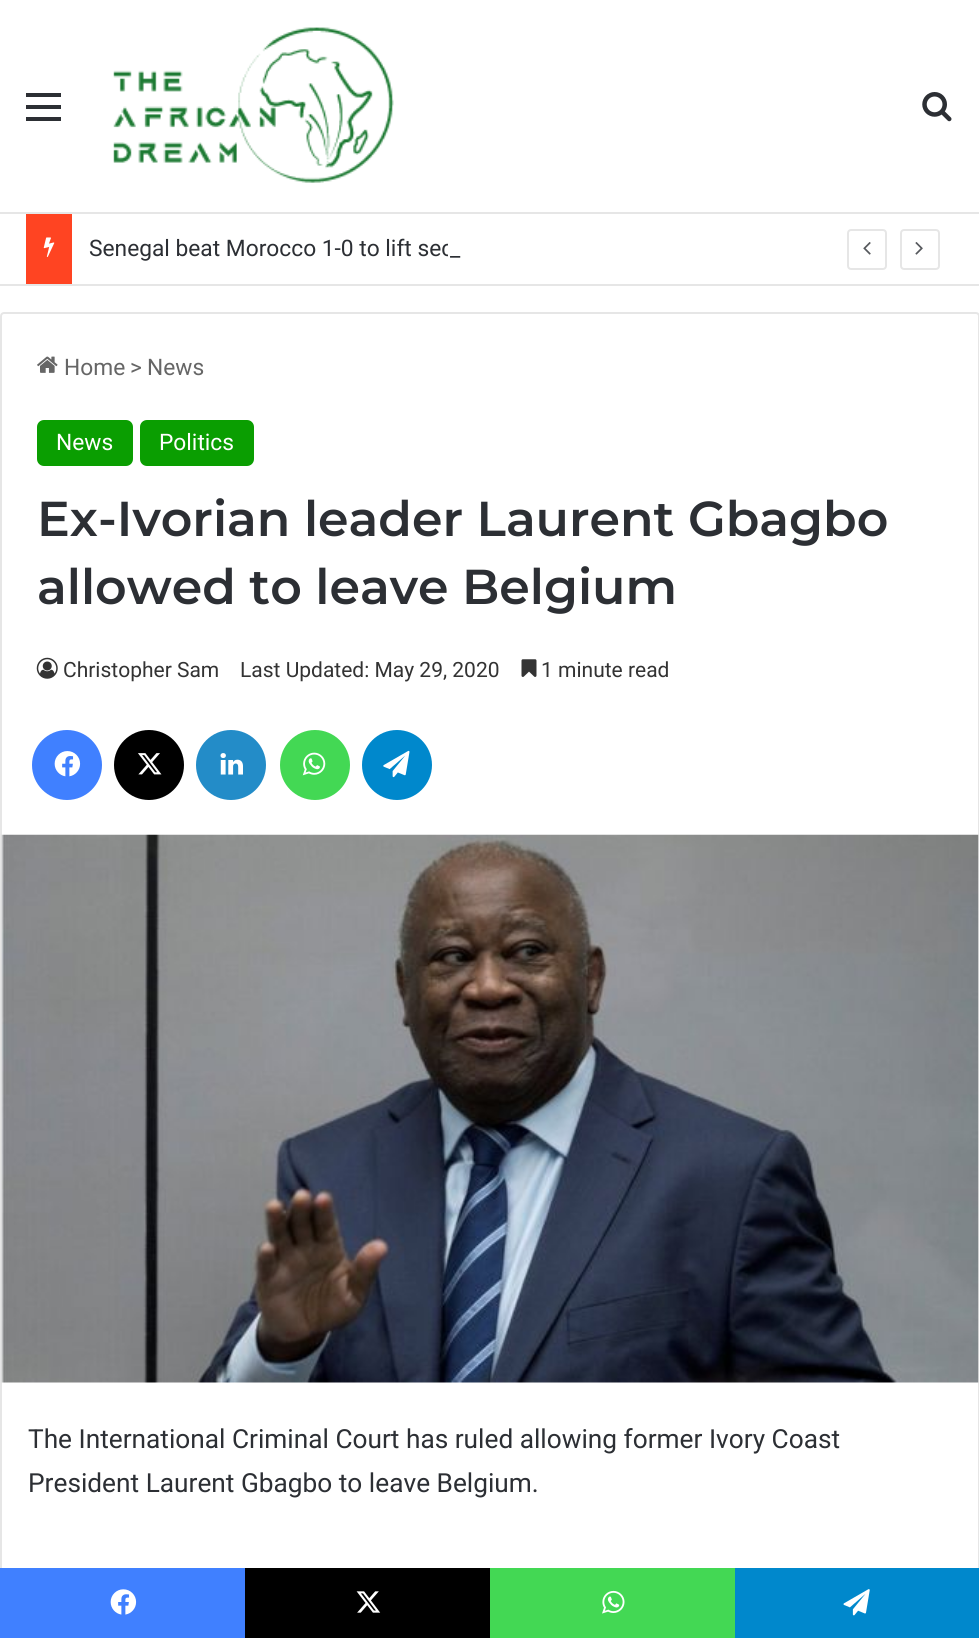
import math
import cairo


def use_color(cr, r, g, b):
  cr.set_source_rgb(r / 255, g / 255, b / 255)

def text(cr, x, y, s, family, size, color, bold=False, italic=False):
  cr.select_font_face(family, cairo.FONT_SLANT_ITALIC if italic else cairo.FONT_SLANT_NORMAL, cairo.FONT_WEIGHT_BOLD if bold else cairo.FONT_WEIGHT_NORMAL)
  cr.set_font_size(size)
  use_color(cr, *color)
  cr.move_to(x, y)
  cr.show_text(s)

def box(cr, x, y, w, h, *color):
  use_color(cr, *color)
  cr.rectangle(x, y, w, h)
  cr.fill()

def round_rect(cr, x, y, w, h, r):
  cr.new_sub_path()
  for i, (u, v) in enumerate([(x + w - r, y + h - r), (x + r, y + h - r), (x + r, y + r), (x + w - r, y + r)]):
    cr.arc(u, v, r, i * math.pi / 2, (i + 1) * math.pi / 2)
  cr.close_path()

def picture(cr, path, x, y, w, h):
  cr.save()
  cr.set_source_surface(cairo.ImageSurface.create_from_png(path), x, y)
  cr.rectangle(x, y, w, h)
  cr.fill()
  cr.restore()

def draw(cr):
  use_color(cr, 255, 255, 255)
  cr.paint()
  box(cr, 26, 105, 35, 4, 44, 47, 52)
  box(cr, 26, 93, 35, 4, 44, 47, 52)
  box(cr, 26, 117, 35, 4, 44, 47, 52)
  picture(cr, "img_01.png", 113, 27, 281, 156)
  picture(cr, "img_02.png", 922, 92, 30, 30)
  box(cr, 0, 212, 979, 2, 230, 230, 230)
  box(cr, 0, 284, 979, 2, 230, 230, 230)
  box(cr, 26, 214, 46, 70, 255, 68, 34)
  picture(cr, "img_03.png", 43, 237, 12, 20)
  round_rect(cr, 848, 230, 38, 39, 3)
  use_color(cr, 230, 230, 230)
  cr.stroke()
  picture(cr, "img_04.png", 863, 242, 8, 13)
  round_rect(cr, 901, 230, 38, 39, 3)
  cr.stroke()
  picture(cr, "img_05.png", 915, 242, 8, 13)
  round_rect(cr, 1, 313, 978, 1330, 3)
  cr.stroke()
  picture(cr, "img_06.png", 37, 356, 21, 17)
  use_color(cr, 10, 158, 1)
  round_rect(cr, 37, 420, 96, 46, 7)
  cr.fill()
  round_rect(cr, 140, 420, 114, 46, 7)
  cr.fill()
  picture(cr, "img_07.png", 36, 657, 22, 22)
  picture(cr, "img_08.png", 521, 659, 16, 18)
  use_color(cr, 64, 128, 255)
  cr.arc(67, 765, 35, 0, 2 * math.pi)
  cr.fill()
  picture(cr, "img_09.png", 54, 751, 27, 26)
  use_color(cr, 0, 0, 0)
  cr.arc(149, 765, 35, 0, 2 * math.pi)
  cr.fill()
  picture(cr, "img_10.png", 138, 753, 24, 22)
  use_color(cr, 35, 140, 200)
  cr.arc(231, 765, 35, 0, 2 * math.pi)
  cr.fill()
  picture(cr, "img_11.png", 220, 753, 23, 22)
  use_color(cr, 67, 216, 84)
  cr.arc(315, 765, 35, 0, 2 * math.pi)
  cr.fill()
  picture(cr, "img_12.png", 302, 752, 24, 24)
  use_color(cr, 0, 136, 204)
  cr.arc(397, 765, 35, 0, 2 * math.pi)
  cr.fill()
  picture(cr, "img_13.png", 383, 750, 27, 28)
  picture(cr, "img_14.png", 1, 834, 978, 549)
  box(cr, 0, 1568, 245, 70, 64, 128, 255)
  picture(cr, "img_15.png", 110, 1589, 27, 26)
  box(cr, 245, 1568, 245, 70, 0, 0, 0)
  picture(cr, "img_16.png", 356, 1591, 25, 22)
  box(cr, 490, 1568, 245, 70, 67, 216, 84)
  picture(cr, "img_17.png", 602, 1590, 23, 24)
  box(cr, 735, 1568, 244, 70, 0, 136, 204)
  picture(cr, "img_18.png", 843, 1589, 27, 27)
  text(cr, 89, 256, "Senegal beat Morocco 1-0 to lift sec", "Roboto", 22.75, (44, 47, 52))
  box(cr, 448, 243, 5, 14, 255, 255, 255)
  text(cr, 450, 256, "_", "Roboto", 22.75, (44, 47, 52))
  text(cr, 64, 375, "Home", "Roboto", 22.75, (102, 102, 102))
  text(cr, 130, 375, ">", "Roboto", 22.75, (102, 102, 102))
  text(cr, 147, 375, "News", "Roboto", 22.75, (102, 102, 102))
  text(cr, 56, 450, "News", "Roboto", 22.75, (255, 255, 255))
  text(cr, 159, 450, "Politics", "Roboto", 22.75, (255, 255, 255))
  text(cr, 37, 536, "Ex-Ivorian leader Laurent Gbagbo", "Montserrat SemiBold", 49, (44, 47, 52))
  text(cr, 37, 604, "allowed to leave Belgium", "Montserrat SemiBold", 49, (44, 47, 52))
  text(cr, 63, 677, "Christopher Sam", "Roboto", 21, (51, 51, 51))
  text(cr, 240, 677, "Last Updated: May 29, 2020", "Roboto", 21, (51, 51, 51))
  text(cr, 541, 677, "1 minute read", "Roboto", 21, (51, 51, 51))
  text(cr, 28, 1448, "The International Criminal Court has ruled allowing former Ivory Coast", "Roboto", 26.25, (44, 47, 52))
  text(cr, 28, 1492, "President Laurent Gbagbo to leave Belgium.", "Roboto", 26.25, (44, 47, 52))


surface = cairo.ImageSurface(cairo.FORMAT_RGB24, 979, 1638)
cr = cairo.Context(surface)
options = cairo.FontOptions()
options.set_hint_metrics(cairo.HINT_METRICS_OFF)
options.set_hint_style(cairo.HINT_STYLE_NONE)
cr.set_font_options(options)
cr.set_miter_limit(4)
draw(cr)
surface.write_to_png("out.png")
